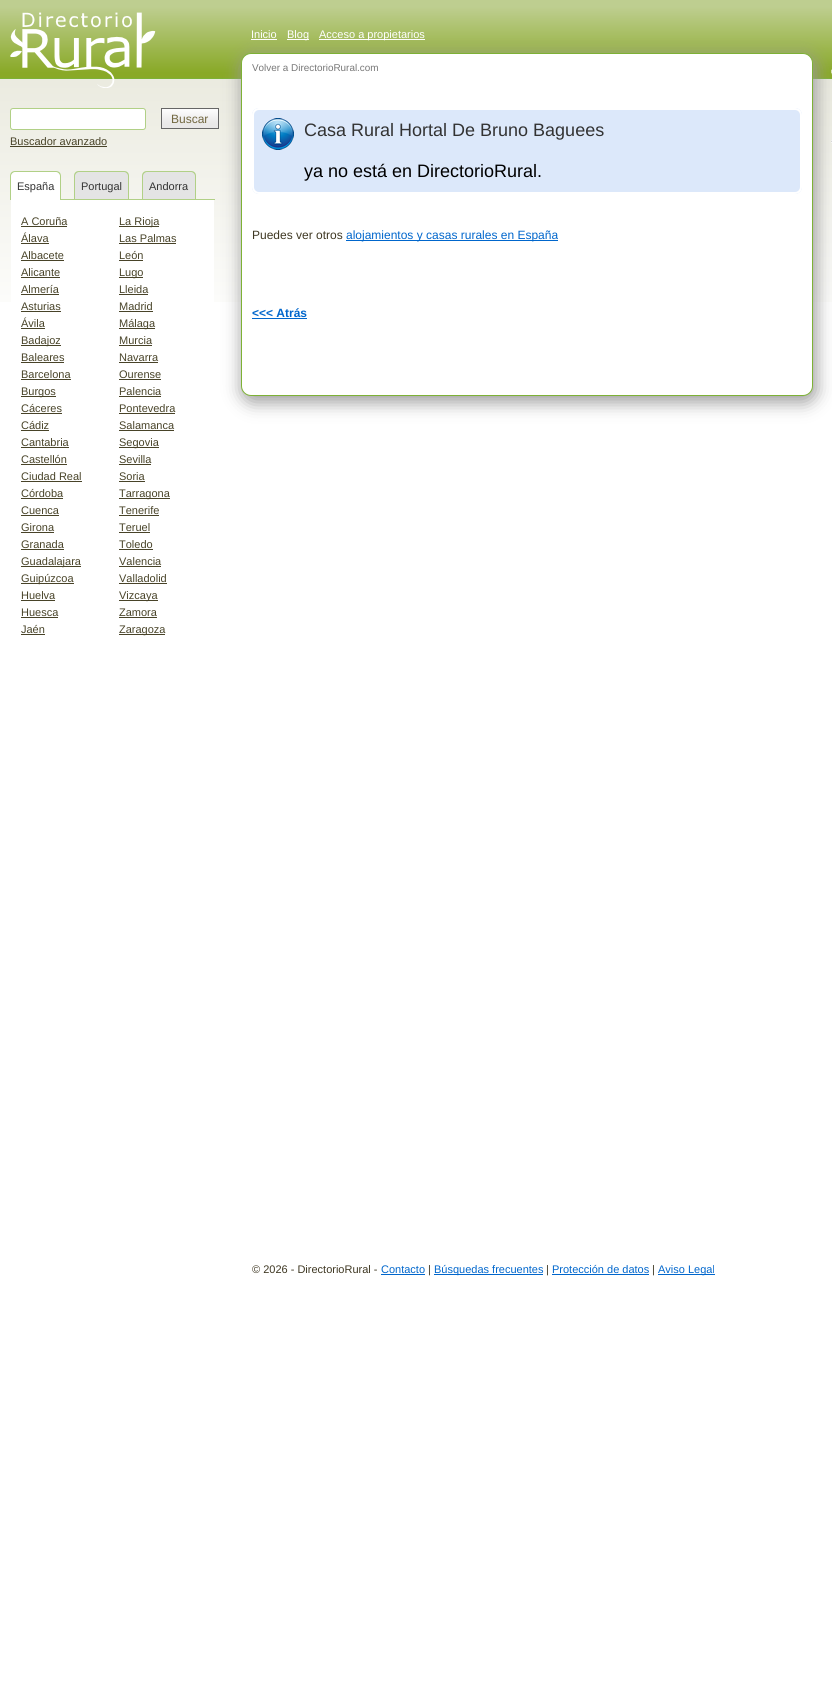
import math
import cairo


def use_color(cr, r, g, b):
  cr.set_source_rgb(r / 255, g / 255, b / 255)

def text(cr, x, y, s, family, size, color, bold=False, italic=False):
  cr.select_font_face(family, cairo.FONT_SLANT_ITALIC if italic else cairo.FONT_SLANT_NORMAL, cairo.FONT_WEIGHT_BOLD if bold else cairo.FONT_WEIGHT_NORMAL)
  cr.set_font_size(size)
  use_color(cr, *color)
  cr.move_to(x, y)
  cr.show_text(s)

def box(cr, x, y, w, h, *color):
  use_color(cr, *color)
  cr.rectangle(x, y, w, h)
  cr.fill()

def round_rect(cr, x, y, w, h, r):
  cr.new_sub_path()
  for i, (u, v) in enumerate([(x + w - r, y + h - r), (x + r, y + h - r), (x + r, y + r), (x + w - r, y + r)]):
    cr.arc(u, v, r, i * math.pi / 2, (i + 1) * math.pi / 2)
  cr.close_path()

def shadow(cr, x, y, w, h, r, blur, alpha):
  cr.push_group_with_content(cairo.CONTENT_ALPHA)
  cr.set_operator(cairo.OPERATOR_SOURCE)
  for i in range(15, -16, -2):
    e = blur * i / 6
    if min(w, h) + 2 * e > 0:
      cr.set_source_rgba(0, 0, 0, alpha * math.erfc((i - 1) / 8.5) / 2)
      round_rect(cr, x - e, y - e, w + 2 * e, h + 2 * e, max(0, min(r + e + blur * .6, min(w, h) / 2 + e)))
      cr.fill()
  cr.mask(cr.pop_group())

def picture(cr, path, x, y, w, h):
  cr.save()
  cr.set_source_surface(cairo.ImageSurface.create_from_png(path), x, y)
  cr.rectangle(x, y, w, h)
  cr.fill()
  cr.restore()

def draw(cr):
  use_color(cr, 255, 255, 255)
  cr.paint()
  picture(cr, "img_01.png", 0, 0, 832, 302)
  picture(cr, "img_02.png", 10, 12, 146, 76)
  box(cr, 251, 39, 26, 1, 255, 255, 255)
  box(cr, 287, 39, 22, 1, 255, 255, 255)
  box(cr, 319, 39, 106, 1, 255, 255, 255)
  box(cr, 10, 199, 205, 1, 177, 208, 134)
  use_color(cr, 153, 153, 153)
  shadow(cr, 242, 57, 574, 345, 11, 9, 1)
  use_color(cr, 255, 255, 255)
  round_rect(cr, 241.5, 53.5, 571, 342, 9.5)
  cr.fill_preserve()
  use_color(cr, 125, 177, 53)
  cr.set_line_width(1)
  cr.stroke()
  use_color(cr, 220, 232, 250)
  round_rect(cr, 252, 108, 550, 86, 7)
  cr.fill()
  picture(cr, "img_03.png", 262, 118, 32, 32)
  round_rect(cr, 253, 109, 548, 84, 6)
  use_color(cr, 255, 255, 255)
  cr.set_line_width(2)
  cr.stroke()
  box(cr, 346, 240, 212, 1, 0, 102, 204)
  box(cr, 252, 318, 55, 1, 0, 102, 204)
  picture(cr, "img_04.png", 831, 69, 1, 6)
  picture(cr, "img_05.png", 831, 140, 1, 3)
  use_color(cr, 255, 255, 255)
  round_rect(cr, 10.5, 108.5, 135, 21, 2.5)
  cr.fill_preserve()
  use_color(cr, 177, 208, 134)
  cr.set_line_width(1)
  cr.stroke()
  picture(cr, "img_06.png", 162, 109, 56, 19)
  cr.rectangle(161.5, 108.5, 57, 20)
  use_color(cr, 102, 102, 102)
  cr.stroke()
  box(cr, 10, 146, 97, 1, 72, 67, 40)
  use_color(cr, 255, 255, 255)
  cr.new_path()
  cr.move_to(15, 171)
  cr.line_to(56, 171)
  cr.curve_to(59, 171, 61, 173, 61, 176)
  cr.line_to(61, 199)
  cr.line_to(10, 199)
  cr.line_to(10, 176)
  cr.curve_to(10, 173, 12, 171, 15, 171)
  cr.close_path()
  cr.fill()
  use_color(cr, 177, 208, 134)
  cr.set_fill_rule(cairo.FILL_RULE_EVEN_ODD)
  cr.new_path()
  cr.move_to(15, 171)
  cr.line_to(56, 171)
  cr.curve_to(59, 171, 61, 173, 61, 176)
  cr.line_to(61, 199)
  cr.line_to(10, 199)
  cr.line_to(10, 176)
  cr.curve_to(10, 173, 12, 171, 15, 171)
  cr.close_path()
  cr.move_to(15, 172)
  cr.line_to(56, 172)
  cr.curve_to(58, 172, 60, 174, 60, 176)
  cr.line_to(60, 199)
  cr.line_to(11, 199)
  cr.line_to(11, 176)
  cr.curve_to(11, 174, 13, 172, 15, 172)
  cr.close_path()
  cr.fill()
  box(cr, 11, 199, 49, 1, 255, 255, 255)
  use_color(cr, 228, 228, 228)
  cr.new_path()
  cr.move_to(79, 171)
  cr.line_to(124, 171)
  cr.curve_to(127, 171, 129, 173, 129, 176)
  cr.line_to(129, 199)
  cr.line_to(74, 199)
  cr.line_to(74, 176)
  cr.curve_to(74, 173, 76, 171, 79, 171)
  cr.close_path()
  cr.fill()
  use_color(cr, 177, 208, 134)
  cr.new_path()
  cr.move_to(79, 171)
  cr.line_to(124, 171)
  cr.curve_to(127, 171, 129, 173, 129, 176)
  cr.line_to(129, 199)
  cr.line_to(74, 199)
  cr.line_to(74, 176)
  cr.curve_to(74, 173, 76, 171, 79, 171)
  cr.close_path()
  cr.move_to(79, 172)
  cr.line_to(124, 172)
  cr.curve_to(126, 172, 128, 174, 128, 176)
  cr.line_to(128, 199)
  cr.line_to(75, 199)
  cr.line_to(75, 176)
  cr.curve_to(75, 174, 77, 172, 79, 172)
  cr.close_path()
  cr.fill()
  use_color(cr, 228, 228, 228)
  cr.new_path()
  cr.move_to(147, 171)
  cr.line_to(191, 171)
  cr.curve_to(194, 171, 196, 173, 196, 176)
  cr.line_to(196, 199)
  cr.line_to(142, 199)
  cr.line_to(142, 176)
  cr.curve_to(142, 173, 144, 171, 147, 171)
  cr.close_path()
  cr.fill()
  use_color(cr, 177, 208, 134)
  cr.new_path()
  cr.move_to(147, 171)
  cr.line_to(191, 171)
  cr.curve_to(194, 171, 196, 173, 196, 176)
  cr.line_to(196, 199)
  cr.line_to(142, 199)
  cr.line_to(142, 176)
  cr.curve_to(142, 173, 144, 171, 147, 171)
  cr.close_path()
  cr.move_to(147, 172)
  cr.line_to(191, 172)
  cr.curve_to(193, 172, 195, 174, 195, 176)
  cr.line_to(195, 199)
  cr.line_to(143, 199)
  cr.line_to(143, 176)
  cr.curve_to(143, 174, 145, 172, 147, 172)
  cr.close_path()
  cr.fill()
  box(cr, 11, 200, 203, 102, 255, 255, 255)
  box(cr, 21, 226, 46, 1, 72, 67, 40)
  box(cr, 21, 243, 28, 1, 72, 67, 40)
  box(cr, 21, 260, 43, 1, 72, 67, 40)
  box(cr, 21, 277, 39, 1, 72, 67, 40)
  box(cr, 21, 294, 38, 1, 72, 67, 40)
  box(cr, 21, 311, 40, 1, 72, 67, 40)
  box(cr, 21, 328, 24, 1, 72, 67, 40)
  box(cr, 21, 345, 40, 1, 72, 67, 40)
  box(cr, 21, 362, 43, 1, 72, 67, 40)
  box(cr, 21, 379, 50, 1, 72, 67, 40)
  box(cr, 21, 396, 35, 1, 72, 67, 40)
  box(cr, 21, 413, 41, 1, 72, 67, 40)
  box(cr, 21, 430, 28, 1, 72, 67, 40)
  box(cr, 21, 447, 48, 1, 72, 67, 40)
  box(cr, 21, 464, 46, 1, 72, 67, 40)
  box(cr, 21, 481, 61, 1, 72, 67, 40)
  box(cr, 21, 498, 42, 1, 72, 67, 40)
  box(cr, 21, 515, 38, 1, 72, 67, 40)
  box(cr, 21, 532, 33, 1, 72, 67, 40)
  box(cr, 21, 549, 43, 1, 72, 67, 40)
  box(cr, 21, 566, 60, 1, 72, 67, 40)
  box(cr, 21, 583, 53, 1, 72, 67, 40)
  box(cr, 21, 600, 34, 1, 72, 67, 40)
  box(cr, 21, 617, 37, 1, 72, 67, 40)
  box(cr, 21, 634, 24, 1, 72, 67, 40)
  box(cr, 119, 226, 40, 1, 72, 67, 40)
  box(cr, 119, 243, 57, 1, 72, 67, 40)
  box(cr, 119, 260, 24, 1, 72, 67, 40)
  box(cr, 119, 277, 24, 1, 72, 67, 40)
  box(cr, 119, 294, 29, 1, 72, 67, 40)
  box(cr, 119, 311, 34, 1, 72, 67, 40)
  box(cr, 119, 328, 36, 1, 72, 67, 40)
  box(cr, 119, 345, 33, 1, 72, 67, 40)
  box(cr, 119, 362, 39, 1, 72, 67, 40)
  box(cr, 119, 379, 42, 1, 72, 67, 40)
  box(cr, 119, 396, 42, 1, 72, 67, 40)
  box(cr, 119, 413, 56, 1, 72, 67, 40)
  box(cr, 119, 430, 55, 1, 72, 67, 40)
  box(cr, 119, 447, 40, 1, 72, 67, 40)
  box(cr, 119, 464, 32, 1, 72, 67, 40)
  box(cr, 119, 481, 26, 1, 72, 67, 40)
  box(cr, 119, 498, 51, 1, 72, 67, 40)
  box(cr, 119, 515, 40, 1, 72, 67, 40)
  box(cr, 119, 532, 31, 1, 72, 67, 40)
  box(cr, 119, 549, 34, 1, 72, 67, 40)
  box(cr, 119, 566, 42, 1, 72, 67, 40)
  box(cr, 119, 583, 48, 1, 72, 67, 40)
  box(cr, 119, 600, 39, 1, 72, 67, 40)
  box(cr, 119, 617, 38, 1, 72, 67, 40)
  box(cr, 119, 634, 46, 1, 72, 67, 40)
  box(cr, 381, 1274, 44, 1, 0, 102, 204)
  box(cr, 434, 1274, 109, 1, 0, 102, 204)
  box(cr, 552, 1274, 97, 1, 0, 102, 204)
  box(cr, 658, 1274, 57, 1, 0, 102, 204)
  text(cr, 251, 38, "Inicio", "Liberation Sans", 11, (255, 255, 255))
  text(cr, 287, 38, "Blog", "Liberation Sans", 11, (255, 255, 255))
  text(cr, 319, 38, "Acceso a propietarios", "Liberation Sans", 11, (255, 255, 255))
  text(cr, 252, 71, "Volver a DirectorioRural.com", "Liberation Sans", 9.9, (119, 119, 119))
  text(cr, 304, 136, "Casa Rural Hortal De Bruno Baguees", "Liberation Sans", 18, (51, 51, 51))
  text(cr, 304, 177, "ya no está en DirectorioRural.", "Liberation Sans", 18, (0, 0, 0))
  text(cr, 252, 239, "Puedes ver otros", "Liberation Sans", 12, (62, 55, 34))
  text(cr, 346, 239, "alojamientos y casas rurales en España", "Liberation Sans", 12, (0, 102, 204))
  text(cr, 252, 317, "<<< Atrás", "Liberation Sans", 12, (0, 102, 204), bold=True)
  text(cr, 171, 123, "Buscar", "Liberation Sans", 12, (114, 104, 65))
  text(cr, 10, 145, "Buscador avanzado", "Liberation Sans", 11, (72, 67, 40))
  text(cr, 17, 190, "España", "Liberation Sans", 11, (51, 51, 51))
  text(cr, 81, 190, "Portugal", "Liberation Sans", 11, (51, 51, 51))
  text(cr, 149, 190, "Andorra", "Liberation Sans", 11, (51, 51, 51))
  text(cr, 21, 225, "A Coruña", "Liberation Sans", 11, (72, 67, 40))
  text(cr, 21, 242, "Álava", "Liberation Sans", 11, (72, 67, 40))
  text(cr, 21, 259, "Albacete", "Liberation Sans", 11, (72, 67, 40))
  text(cr, 21, 276, "Alicante", "Liberation Sans", 11, (72, 67, 40))
  text(cr, 21, 293, "Almería", "Liberation Sans", 11, (72, 67, 40))
  text(cr, 21, 310, "Asturias", "Liberation Sans", 11, (72, 67, 40))
  text(cr, 21, 327, "Ávila", "Liberation Sans", 11, (72, 67, 40))
  text(cr, 21, 344, "Badajoz", "Liberation Sans", 11, (72, 67, 40))
  text(cr, 21, 361, "Baleares", "Liberation Sans", 11, (72, 67, 40))
  text(cr, 21, 378, "Barcelona", "Liberation Sans", 11, (72, 67, 40))
  text(cr, 21, 395, "Burgos", "Liberation Sans", 11, (72, 67, 40))
  text(cr, 21, 412, "Cáceres", "Liberation Sans", 11, (72, 67, 40))
  text(cr, 21, 429, "Cádiz", "Liberation Sans", 11, (72, 67, 40))
  text(cr, 21, 446, "Cantabria", "Liberation Sans", 11, (72, 67, 40))
  text(cr, 21, 463, "Castellón", "Liberation Sans", 11, (72, 67, 40))
  text(cr, 21, 480, "Ciudad Real", "Liberation Sans", 11, (72, 67, 40))
  text(cr, 21, 497, "Córdoba", "Liberation Sans", 11, (72, 67, 40))
  text(cr, 21, 514, "Cuenca", "Liberation Sans", 11, (72, 67, 40))
  text(cr, 21, 531, "Girona", "Liberation Sans", 11, (72, 67, 40))
  text(cr, 21, 548, "Granada", "Liberation Sans", 11, (72, 67, 40))
  text(cr, 21, 565, "Guadalajara", "Liberation Sans", 11, (72, 67, 40))
  text(cr, 21, 582, "Guipúzcoa", "Liberation Sans", 11, (72, 67, 40))
  text(cr, 21, 599, "Huelva", "Liberation Sans", 11, (72, 67, 40))
  text(cr, 21, 616, "Huesca", "Liberation Sans", 11, (72, 67, 40))
  text(cr, 21, 633, "Jaén", "Liberation Sans", 11, (72, 67, 40))
  text(cr, 119, 225, "La Rioja", "Liberation Sans", 11, (72, 67, 40))
  text(cr, 119, 242, "Las Palmas", "Liberation Sans", 11, (72, 67, 40))
  text(cr, 119, 259, "León", "Liberation Sans", 11, (72, 67, 40))
  text(cr, 119, 276, "Lugo", "Liberation Sans", 11, (72, 67, 40))
  text(cr, 119, 293, "Lleida", "Liberation Sans", 11, (72, 67, 40))
  text(cr, 119, 310, "Madrid", "Liberation Sans", 11, (72, 67, 40))
  text(cr, 119, 327, "Málaga", "Liberation Sans", 11, (72, 67, 40))
  text(cr, 119, 344, "Murcia", "Liberation Sans", 11, (72, 67, 40))
  text(cr, 119, 361, "Navarra", "Liberation Sans", 11, (72, 67, 40))
  text(cr, 119, 378, "Ourense", "Liberation Sans", 11, (72, 67, 40))
  text(cr, 119, 395, "Palencia", "Liberation Sans", 11, (72, 67, 40))
  text(cr, 119, 412, "Pontevedra", "Liberation Sans", 11, (72, 67, 40))
  text(cr, 119, 429, "Salamanca", "Liberation Sans", 11, (72, 67, 40))
  text(cr, 119, 446, "Segovia", "Liberation Sans", 11, (72, 67, 40))
  text(cr, 119, 463, "Sevilla", "Liberation Sans", 11, (72, 67, 40))
  text(cr, 119, 480, "Soria", "Liberation Sans", 11, (72, 67, 40))
  text(cr, 119, 497, "Tarragona", "Liberation Sans", 11, (72, 67, 40))
  text(cr, 119, 514, "Tenerife", "Liberation Sans", 11, (72, 67, 40))
  text(cr, 119, 531, "Teruel", "Liberation Sans", 11, (72, 67, 40))
  text(cr, 119, 548, "Toledo", "Liberation Sans", 11, (72, 67, 40))
  text(cr, 119, 565, "Valencia", "Liberation Sans", 11, (72, 67, 40))
  text(cr, 119, 582, "Valladolid", "Liberation Sans", 11, (72, 67, 40))
  text(cr, 119, 599, "Vizcaya", "Liberation Sans", 11, (72, 67, 40))
  text(cr, 119, 616, "Zamora", "Liberation Sans", 11, (72, 67, 40))
  text(cr, 119, 633, "Zaragoza", "Liberation Sans", 11, (72, 67, 40))
  text(cr, 252, 1273, "© 2026 - DirectorioRural -", "Liberation Sans", 11, (62, 55, 34))
  text(cr, 381, 1273, "Contacto", "Liberation Sans", 11, (0, 102, 204))
  text(cr, 428, 1273, "|", "Liberation Sans", 11, (62, 55, 34))
  text(cr, 434, 1273, "Búsquedas frecuentes", "Liberation Sans", 11, (0, 102, 204))
  text(cr, 546, 1273, "|", "Liberation Sans", 11, (62, 55, 34))
  text(cr, 552, 1273, "Protección de datos", "Liberation Sans", 11, (0, 102, 204))
  text(cr, 652, 1273, "|", "Liberation Sans", 11, (62, 55, 34))
  text(cr, 658, 1273, "Aviso Legal", "Liberation Sans", 11, (0, 102, 204))


surface = cairo.ImageSurface(cairo.FORMAT_RGB24, 832, 1681)
cr = cairo.Context(surface)
options = cairo.FontOptions()
options.set_hint_metrics(cairo.HINT_METRICS_OFF)
options.set_hint_style(cairo.HINT_STYLE_NONE)
cr.set_font_options(options)
cr.set_miter_limit(4)
draw(cr)
surface.write_to_png("out.png")
